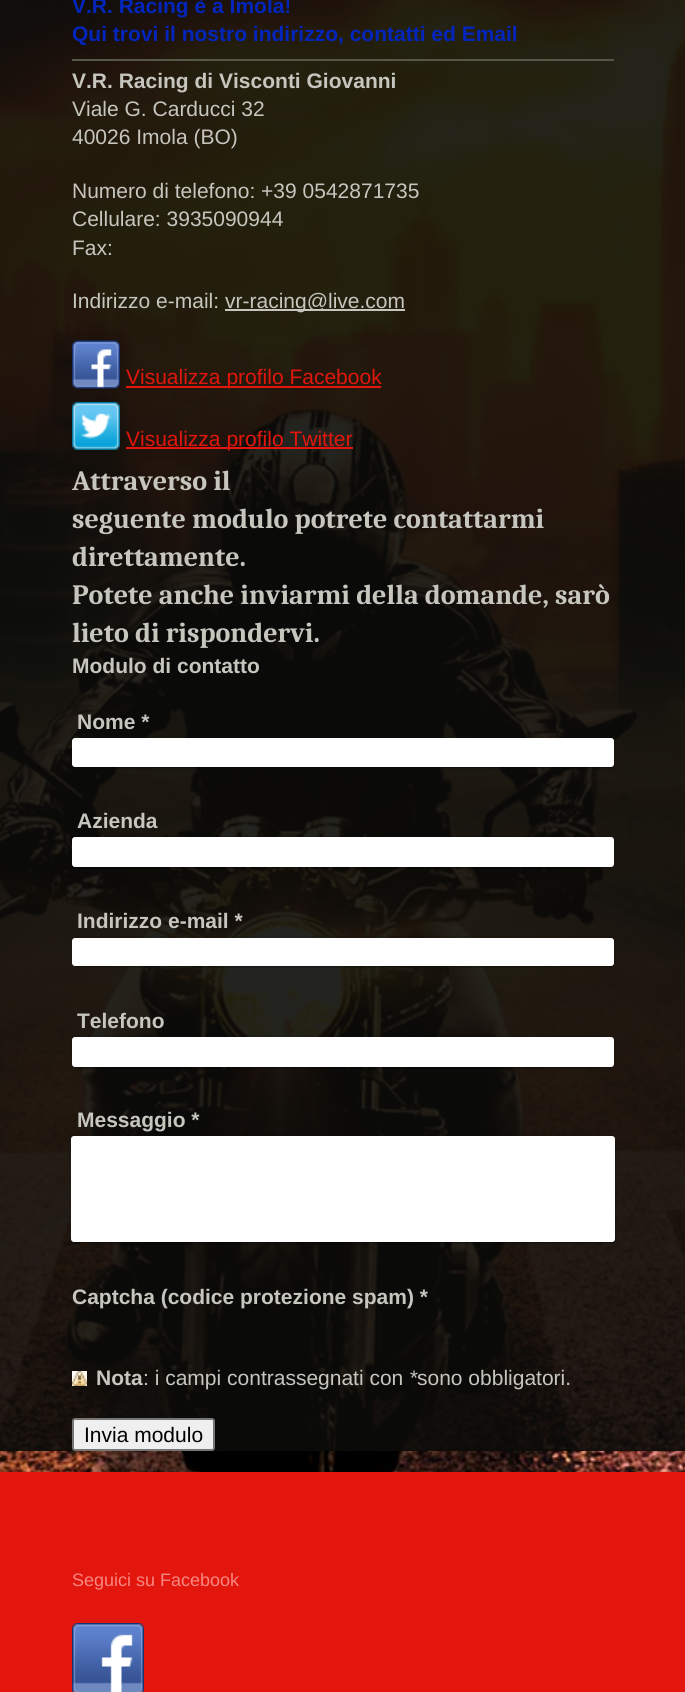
import math
import cairo


def use_color(cr, r, g, b):
  cr.set_source_rgb(r / 255, g / 255, b / 255)

def text(cr, x, y, s, family, size, color, bold=False, italic=False):
  cr.select_font_face(family, cairo.FONT_SLANT_ITALIC if italic else cairo.FONT_SLANT_NORMAL, cairo.FONT_WEIGHT_BOLD if bold else cairo.FONT_WEIGHT_NORMAL)
  cr.set_font_size(size)
  use_color(cr, *color)
  cr.move_to(x, y)
  cr.show_text(s)

def box(cr, x, y, w, h, *color):
  use_color(cr, *color)
  cr.rectangle(x, y, w, h)
  cr.fill()

def round_rect(cr, x, y, w, h, r):
  cr.new_sub_path()
  for i, (u, v) in enumerate([(x + w - r, y + h - r), (x + r, y + h - r), (x + r, y + r), (x + w - r, y + r)]):
    cr.arc(u, v, r, i * math.pi / 2, (i + 1) * math.pi / 2)
  cr.close_path()

def shadow(cr, x, y, w, h, r, blur, alpha):
  cr.push_group_with_content(cairo.CONTENT_ALPHA)
  cr.set_operator(cairo.OPERATOR_SOURCE)
  for i in range(15, -16, -2):
    e = blur * i / 6
    if min(w, h) + 2 * e > 0:
      cr.set_source_rgba(0, 0, 0, alpha * math.erfc((i - 1) / 8.5) / 2)
      round_rect(cr, x - e, y - e, w + 2 * e, h + 2 * e, max(0, min(r + e + blur * .6, min(w, h) / 2 + e)))
      cr.fill()
  cr.mask(cr.pop_group())

def picture(cr, path, x, y, w, h):
  cr.save()
  cr.set_source_surface(cairo.ImageSurface.create_from_png(path), x, y)
  cr.rectangle(x, y, w, h)
  cr.fill()
  cr.restore()

def draw(cr):
  use_color(cr, 255, 255, 255)
  cr.paint()
  picture(cr, "img_01.png", 0, 0, 685, 1472)
  cr.set_source_rgba(0.047, 0.047, 0.039, 0.9)
  cr.rectangle(0, 0, 685, 1451)
  cr.fill()
  box(cr, 72, 59, 542, 2, 87, 87, 73)
  box(cr, 225, 309, 180, 2, 198, 198, 191)
  picture(cr, "img_02.png", 72, 340, 48, 49)
  box(cr, 126, 386, 255, 2, 226, 22, 12)
  picture(cr, "img_03.png", 72, 402, 48, 48)
  box(cr, 126, 447, 227, 2, 226, 22, 12)
  cr.set_source_rgba(0, 0, 0, 0.08)
  cr.new_path()
  cr.move_to(74, 737)
  cr.curve_to(72, 737, 71, 738, 71, 740)
  cr.line_to(71, 762)
  cr.curve_to(71, 763, 71, 764, 72, 764)
  cr.line_to(72, 745)
  cr.curve_to(72, 742, 71, 738, 75, 738)
  cr.line_to(611, 738)
  cr.line_to(609, 737)
  cr.close_path()
  cr.fill()
  use_color(cr, 0, 0, 0)
  shadow(cr, 77, 744, 535, 23, 0, 1.5, 0.8)
  use_color(cr, 255, 255, 255)
  round_rect(cr, 72, 738, 542, 29, 3)
  cr.fill()
  cr.set_source_rgba(0, 0, 0, 0.08)
  cr.new_path()
  cr.move_to(74, 836)
  cr.curve_to(72, 836, 71, 837, 71, 839)
  cr.line_to(71, 863)
  cr.curve_to(71, 864, 72, 865, 72, 866)
  cr.curve_to(71, 863, 72, 851, 72, 848)
  cr.curve_to(72, 846, 70, 837, 75, 837)
  cr.line_to(611, 837)
  cr.line_to(609, 836)
  cr.close_path()
  cr.fill()
  use_color(cr, 0, 0, 0)
  shadow(cr, 77, 843, 535, 24, 0, 1.5, 0.8)
  use_color(cr, 255, 255, 255)
  round_rect(cr, 72, 837, 542, 30, 3)
  cr.fill()
  cr.set_source_rgba(0, 0, 0, 0.08)
  cr.new_path()
  cr.move_to(74, 936)
  cr.curve_to(72, 936, 71, 937, 71, 939)
  cr.line_to(71, 962)
  cr.curve_to(71, 963, 72, 964, 72, 965)
  cr.curve_to(71, 962, 72, 951, 72, 948)
  cr.curve_to(72, 946, 70, 938, 75, 938)
  cr.line_to(612, 938)
  cr.curve_to(611, 937, 610, 936, 609, 936)
  cr.close_path()
  cr.fill()
  use_color(cr, 0, 0, 0)
  shadow(cr, 77, 944, 535, 22, 0, 1.5, 0.8)
  use_color(cr, 255, 255, 255)
  round_rect(cr, 72, 938, 542, 28, 3)
  cr.fill()
  cr.set_source_rgba(0, 0, 0, 0.08)
  cr.new_path()
  cr.move_to(74, 1035)
  cr.curve_to(72, 1035, 71, 1036, 71, 1038)
  cr.line_to(71, 1062)
  cr.curve_to(71, 1063, 71, 1064, 72, 1064)
  cr.line_to(72, 1044)
  cr.curve_to(72, 1041, 71, 1037, 75, 1036)
  cr.line_to(612, 1037)
  cr.curve_to(611, 1036, 610, 1035, 609, 1035)
  cr.close_path()
  cr.fill()
  use_color(cr, 0, 0, 0)
  shadow(cr, 77, 1043, 535, 24, 0, 1.5, 0.8)
  use_color(cr, 255, 255, 255)
  round_rect(cr, 72, 1037, 542, 30, 3)
  cr.fill()
  cr.set_source_rgba(0, 0, 0, 0.08)
  cr.new_path()
  cr.move_to(72, 1134)
  cr.curve_to(66, 1134, 69, 1148, 69, 1154)
  cr.line_to(69, 1239)
  cr.line_to(71, 1241)
  cr.line_to(70, 1239)
  cr.line_to(70, 1138)
  cr.curve_to(70, 1137, 72, 1136, 74, 1136)
  cr.line_to(612, 1136)
  cr.line_to(614, 1136)
  cr.curve_to(614, 1135, 612, 1134, 611, 1134)
  cr.close_path()
  cr.fill()
  use_color(cr, 0, 0, 0)
  shadow(cr, 75, 1142, 539, 100, 0, 1.5, 0.8)
  use_color(cr, 255, 255, 255)
  round_rect(cr, 71, 1136, 544, 106, 3)
  cr.fill()
  picture(cr, "img_04.png", 72, 1371, 15, 15)
  use_color(cr, 239, 239, 239)
  round_rect(cr, 73, 1419, 141, 31, 2)
  cr.fill_preserve()
  use_color(cr, 118, 118, 118)
  cr.stroke()
  box(cr, 0, 1472, 685, 220, 226, 22, 12)
  picture(cr, "img_05.png", 72, 1623, 72, 69)
  text(cr, 72, 13, "V.R. Racing è a Imola!", "Liberation Sans", 21, (3, 37, 188), bold=True)
  text(cr, 72, 41, "Qui trovi il nostro indirizzo, contatti ed Email", "Liberation Sans", 21, (3, 37, 188), bold=True)
  text(cr, 72, 88, "V.R. Racing di Visconti Giovanni", "Liberation Sans", 21, (198, 198, 191), bold=True)
  text(cr, 72, 116, "Viale G. Carducci 32", "Liberation Sans", 21, (198, 198, 191))
  text(cr, 72, 144, "40026 Imola (BO)", "Liberation Sans", 21, (198, 198, 191))
  text(cr, 72, 198, "Numero di telefono: +39 0542871735", "Liberation Sans", 21, (198, 198, 191))
  text(cr, 72, 226, "Cellulare: 3935090944", "Liberation Sans", 21, (198, 198, 191))
  text(cr, 72, 255, "Fax:", "Liberation Sans", 21, (198, 198, 191))
  text(cr, 72, 308, "Indirizzo e-mail:", "Liberation Sans", 21, (198, 198, 191))
  text(cr, 225, 308, "vr-racing@live.com", "Liberation Sans", 21, (198, 198, 191))
  text(cr, 126, 384, "Visualizza profilo Facebook", "Liberation Sans", 21, (226, 22, 12))
  text(cr, 126, 446, "Visualizza profilo Twitter", "Liberation Sans", 21, (226, 22, 12))
  text(cr, 72, 490, "Attraverso il", "Caladea", 28, (198, 198, 191), bold=True)
  text(cr, 72, 528, "seguente modulo potrete contattarmi", "Caladea", 28, (198, 198, 191), bold=True)
  text(cr, 72, 566, "direttamente.", "Caladea", 28, (198, 198, 191), bold=True)
  text(cr, 72, 604, "Potete anche inviarmi della domande, sarò", "Caladea", 28, (198, 198, 191), bold=True)
  text(cr, 72, 642, "lieto di rispondervi.", "Caladea", 28, (198, 198, 191), bold=True)
  text(cr, 72, 673, "Modulo di contatto", "Liberation Sans", 21, (198, 198, 191), bold=True)
  text(cr, 77, 729, "Nome *", "Liberation Sans", 21, (198, 198, 191), bold=True)
  text(cr, 77, 828, "Azienda", "Liberation Sans", 21, (198, 198, 191), bold=True)
  text(cr, 77, 928, "Indirizzo e-mail *", "Liberation Sans", 21, (198, 198, 191), bold=True)
  text(cr, 77, 1028, "Telefono", "Liberation Sans", 21, (198, 198, 191), bold=True)
  text(cr, 77, 1127, "Messaggio *", "Liberation Sans", 21, (198, 198, 191), bold=True)
  text(cr, 72, 1304, "Captcha (codice protezione spam) *", "Liberation Sans", 21, (198, 198, 191), bold=True)
  text(cr, 96, 1385, "Nota", "Liberation Sans", 21, (198, 198, 191), bold=True)
  text(cr, 143, 1385, ": i campi contrassegnati con", "Liberation Sans", 21, (198, 198, 191))
  text(cr, 409, 1385, "*", "Liberation Sans", 21, (198, 198, 191), italic=True)
  text(cr, 417, 1385, "sono obbligatori.", "Liberation Sans", 21, (198, 198, 191))
  text(cr, 84, 1442, "Invia modulo", "Liberation Sans", 21, (0, 0, 0))
  text(cr, 72, 1586, "Seguici su Facebook", "Liberation Sans", 18, (247, 135, 129))


surface = cairo.ImageSurface(cairo.FORMAT_RGB24, 685, 1692)
cr = cairo.Context(surface)
options = cairo.FontOptions()
options.set_hint_metrics(cairo.HINT_METRICS_OFF)
options.set_hint_style(cairo.HINT_STYLE_NONE)
cr.set_font_options(options)
cr.set_miter_limit(4)
draw(cr)
surface.write_to_png("out.png")
